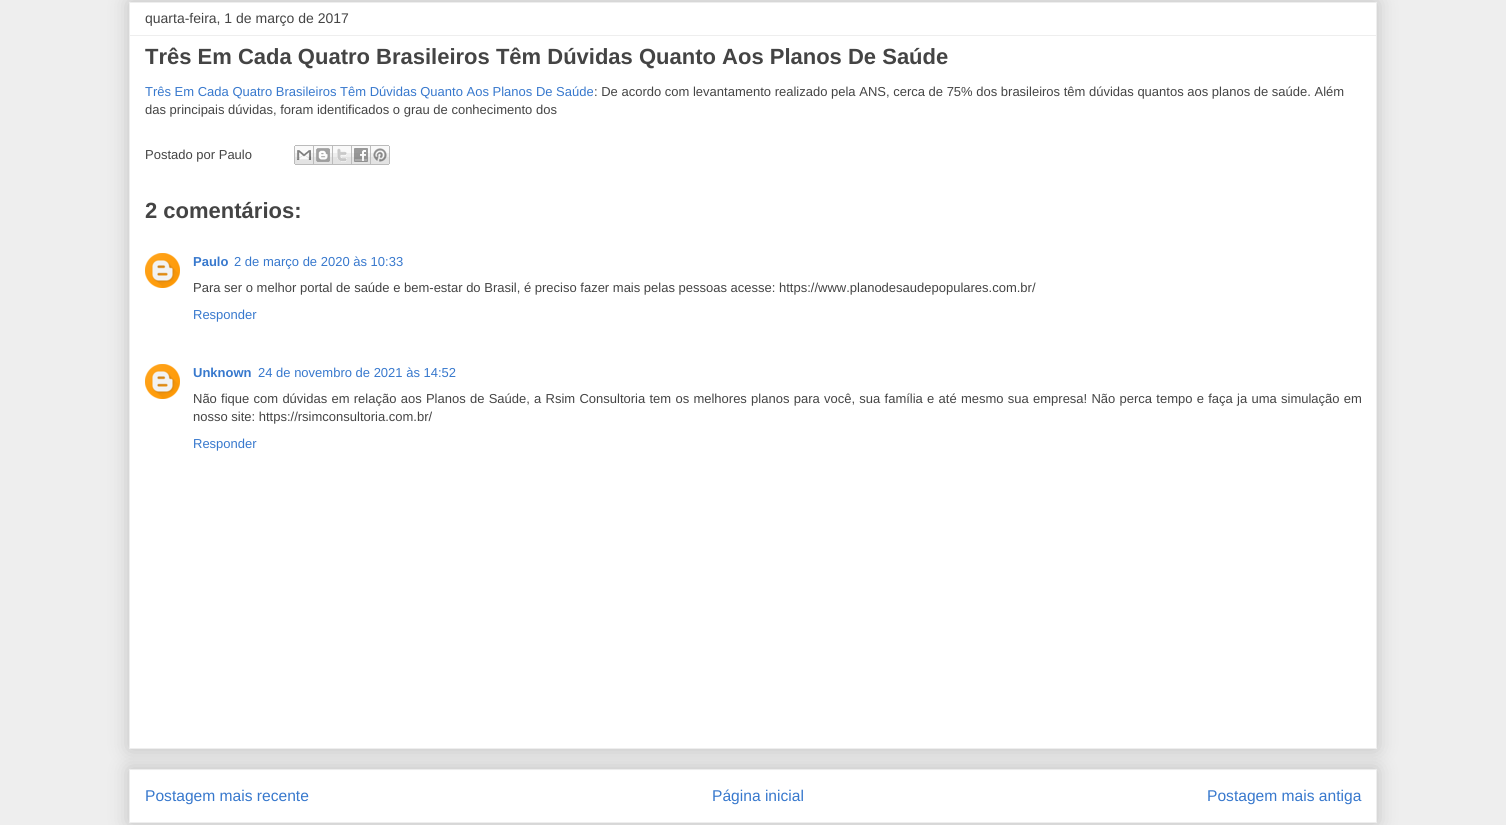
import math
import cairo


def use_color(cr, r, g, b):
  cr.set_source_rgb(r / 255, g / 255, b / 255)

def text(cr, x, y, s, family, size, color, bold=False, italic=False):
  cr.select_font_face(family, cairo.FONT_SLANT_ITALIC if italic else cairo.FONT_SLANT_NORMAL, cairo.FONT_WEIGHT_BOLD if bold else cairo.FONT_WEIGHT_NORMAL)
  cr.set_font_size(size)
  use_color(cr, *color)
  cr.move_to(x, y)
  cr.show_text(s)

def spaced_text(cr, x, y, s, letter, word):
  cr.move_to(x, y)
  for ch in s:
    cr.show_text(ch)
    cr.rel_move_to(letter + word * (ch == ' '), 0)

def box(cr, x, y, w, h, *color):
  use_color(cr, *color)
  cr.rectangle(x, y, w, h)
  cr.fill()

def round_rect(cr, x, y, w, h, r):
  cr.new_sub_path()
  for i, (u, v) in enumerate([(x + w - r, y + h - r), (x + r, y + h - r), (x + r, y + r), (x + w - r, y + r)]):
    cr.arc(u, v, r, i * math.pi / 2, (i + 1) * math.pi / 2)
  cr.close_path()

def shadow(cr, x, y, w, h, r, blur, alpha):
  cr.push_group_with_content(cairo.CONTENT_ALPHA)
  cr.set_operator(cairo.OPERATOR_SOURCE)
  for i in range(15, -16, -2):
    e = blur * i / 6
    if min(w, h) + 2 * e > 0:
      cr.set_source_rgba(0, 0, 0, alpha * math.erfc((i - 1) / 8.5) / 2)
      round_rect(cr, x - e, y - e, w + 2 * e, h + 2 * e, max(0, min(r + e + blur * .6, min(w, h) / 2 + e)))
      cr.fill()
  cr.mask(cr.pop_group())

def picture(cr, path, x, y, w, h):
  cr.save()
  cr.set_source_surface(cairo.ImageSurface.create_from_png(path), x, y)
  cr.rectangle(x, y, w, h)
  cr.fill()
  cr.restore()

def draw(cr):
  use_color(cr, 238, 238, 238)
  cr.paint()
  use_color(cr, 0, 0, 0)
  shadow(cr, 129, 769, 1248, 54, 0, 10, 0.2)
  use_color(cr, 255, 255, 255)
  cr.rectangle(129.5, 769.5, 1247, 53)
  cr.fill_preserve()
  use_color(cr, 238, 238, 238)
  cr.set_line_width(1)
  cr.stroke()
  use_color(cr, 0, 0, 0)
  shadow(cr, 129, 2, 1248, 747, 0, 10, 0.2)
  use_color(cr, 255, 255, 255)
  cr.rectangle(129.5, 2.5, 1247, 746)
  cr.fill_preserve()
  use_color(cr, 238, 238, 238)
  cr.stroke()
  box(cr, 130, 35, 1246, 1, 238, 238, 238)
  picture(cr, "img_01.png", 294, 145, 20, 20)
  picture(cr, "img_02.png", 314, 145, 19, 20)
  picture(cr, "img_03.png", 333, 145, 19, 20)
  picture(cr, "img_04.png", 352, 145, 19, 20)
  picture(cr, "img_05.png", 371, 145, 19, 20)
  picture(cr, "img_06.png", 145, 253, 35, 35)
  picture(cr, "img_06.png", 145, 364, 35, 35)
  text(cr, 145, 23, "quarta-feira, 1 de março de 2017", "Liberation Sans", 14, (68, 68, 68))
  text(cr, 145, 64, "Três Em Cada Quatro Brasileiros Têm Dúvidas Quanto Aos Planos De Saúde", "Liberation Sans", 22, (68, 68, 68), bold=True)
  text(cr, 145, 96, "Três Em Cada Quatro Brasileiros Têm Dúvidas Quanto Aos Planos De Saúde", "Liberation Sans", 13, (55, 120, 205))
  text(cr, 594, 96, ": De acordo com levantamento realizado pela ANS, cerca de 75% dos brasileiros têm dúvidas quantos aos planos de saúde. Além", "Liberation Sans", 13, (68, 68, 68))
  text(cr, 145, 114, "das principais dúvidas, foram identificados o grau de conhecimento dos", "Liberation Sans", 13, (68, 68, 68))
  text(cr, 145, 159, "Postado por Paulo", "Liberation Sans", 13, (68, 68, 68))
  text(cr, 145, 218, "2 comentários:", "Liberation Sans", 22, (68, 68, 68), bold=True)
  text(cr, 193, 266, "Paulo", "Liberation Sans", 13, (55, 120, 205), bold=True)
  text(cr, 234, 266, "2 de março de 2020 às 10:33", "Liberation Sans", 13, (55, 120, 205))
  text(cr, 193, 292, "Para ser o melhor portal de saúde e bem-estar do Brasil, é preciso fazer mais pelas pessoas acesse: https://www.planodesaudepopulares.com.br/", "Liberation Sans", 13, (68, 68, 68))
  text(cr, 193, 319, "Responder", "Liberation Sans", 13, (55, 120, 205))
  text(cr, 193, 377, "Unknown", "Liberation Sans", 13, (55, 120, 205), bold=True)
  text(cr, 258, 377, "24 de novembro de 2021 às 14:52", "Liberation Sans", 13, (55, 120, 205))
  use_color(cr, 68, 68, 68)
  spaced_text(cr, 193, 403, "Não fique com dúvidas em relação aos Planos de Saúde, a Rsim Consultoria tem os melhores planos para você, sua família e até mesmo sua empresa! Não perca tempo e faça ja uma simulação em", 0, 0.65)
  text(cr, 193, 421, "nosso site: https://rsimconsultoria.com.br/", "Liberation Sans", 13, (68, 68, 68))
  text(cr, 193, 448, "Responder", "Liberation Sans", 13, (55, 120, 205))
  text(cr, 145, 801, "Postagem mais recente", "Liberation Sans", 15.6, (55, 120, 205))
  text(cr, 712, 801, "Página inicial", "Liberation Sans", 15.6, (55, 120, 205))
  text(cr, 1207, 801, "Postagem mais antiga", "Liberation Sans", 15.6, (55, 120, 205))


surface = cairo.ImageSurface(cairo.FORMAT_RGB24, 1506, 825)
cr = cairo.Context(surface)
options = cairo.FontOptions()
options.set_hint_metrics(cairo.HINT_METRICS_OFF)
options.set_hint_style(cairo.HINT_STYLE_NONE)
cr.set_font_options(options)
cr.set_miter_limit(4)
draw(cr)
surface.write_to_png("out.png")
